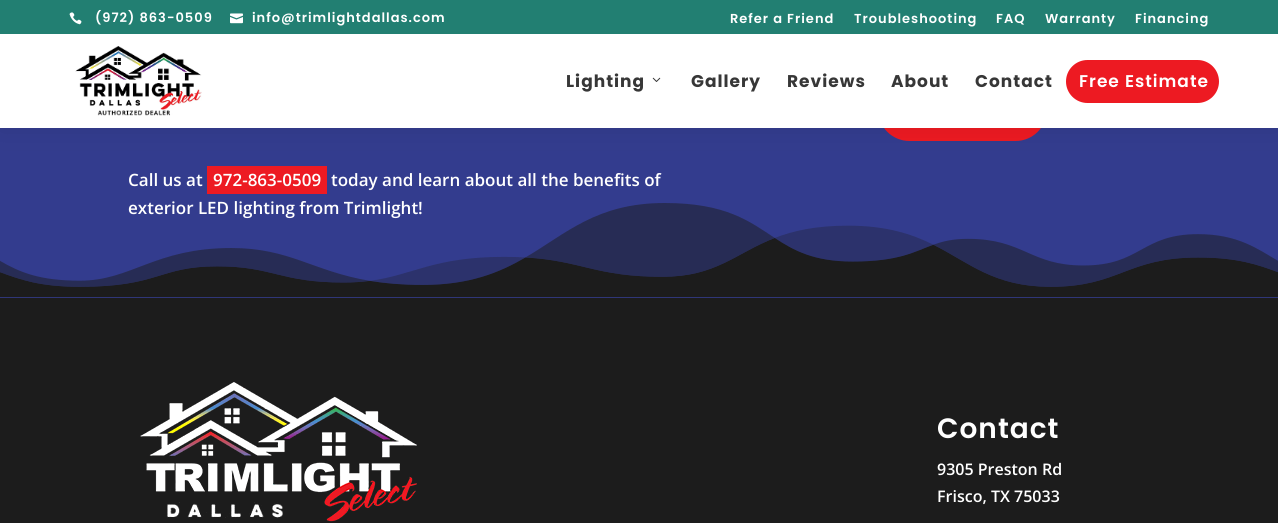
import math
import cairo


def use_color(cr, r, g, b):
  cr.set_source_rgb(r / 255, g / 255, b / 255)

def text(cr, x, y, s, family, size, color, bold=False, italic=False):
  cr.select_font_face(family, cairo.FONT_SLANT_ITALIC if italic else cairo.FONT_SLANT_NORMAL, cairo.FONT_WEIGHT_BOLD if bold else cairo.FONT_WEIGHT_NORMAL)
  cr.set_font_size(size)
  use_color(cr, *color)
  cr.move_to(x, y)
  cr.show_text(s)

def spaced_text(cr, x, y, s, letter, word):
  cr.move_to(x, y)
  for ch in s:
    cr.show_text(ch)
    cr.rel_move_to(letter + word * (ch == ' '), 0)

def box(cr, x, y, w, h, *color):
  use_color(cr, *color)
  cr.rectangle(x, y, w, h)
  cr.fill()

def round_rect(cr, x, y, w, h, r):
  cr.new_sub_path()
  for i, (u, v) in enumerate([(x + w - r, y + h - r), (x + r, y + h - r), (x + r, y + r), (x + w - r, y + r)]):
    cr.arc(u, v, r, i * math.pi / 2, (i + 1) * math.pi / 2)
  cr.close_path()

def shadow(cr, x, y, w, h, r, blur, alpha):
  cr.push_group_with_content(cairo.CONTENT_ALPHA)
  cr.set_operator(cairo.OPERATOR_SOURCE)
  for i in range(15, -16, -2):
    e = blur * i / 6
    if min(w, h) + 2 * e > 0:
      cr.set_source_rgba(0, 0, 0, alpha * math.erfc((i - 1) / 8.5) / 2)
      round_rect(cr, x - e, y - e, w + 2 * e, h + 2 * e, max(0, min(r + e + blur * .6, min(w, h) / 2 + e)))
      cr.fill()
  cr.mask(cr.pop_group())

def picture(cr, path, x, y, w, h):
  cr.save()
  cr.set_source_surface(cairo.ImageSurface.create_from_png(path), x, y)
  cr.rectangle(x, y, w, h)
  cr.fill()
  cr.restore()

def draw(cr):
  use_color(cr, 51, 60, 142)
  cr.paint()
  use_color(cr, 237, 26, 34)
  round_rect(cr, 878, 78, 169, 63, 31.5)
  cr.fill()
  box(cr, 207, 166, 120, 28, 237, 26, 34)
  use_color(cr, 0, 0, 0)
  shadow(cr, 0, 34, 1278, 94, 0, 12.5, 0.1)
  box(cr, 0, 0, 1278, 34, 34, 127, 114)
  picture(cr, "img_01.png", 69, 12, 13, 13)
  picture(cr, "img_02.png", 230, 13, 13, 11)
  box(cr, 0, 34, 1278, 94, 255, 255, 255)
  picture(cr, "img_03.png", 75, 46, 127, 70)
  picture(cr, "img_04.png", 652, 77, 9, 5)
  use_color(cr, 237, 26, 34)
  round_rect(cr, 1066, 60, 153, 43, 21.5)
  cr.fill()
  picture(cr, "img_05.png", 0, 203, 1278, 95)
  box(cr, 0, 298, 1278, 225, 28, 28, 28)
  picture(cr, "img_06.png", 140, 382, 277, 140)
  cr.select_font_face("Poppins SemiBold")
  cr.set_font_size(13)
  use_color(cr, 255, 255, 255)
  spaced_text(cr, 95, 22, "(972) 863-0509", 1, 0)
  spaced_text(cr, 252, 22, "info@trimlightdallas.com", 1, 0)
  spaced_text(cr, 730, 23, "Refer a Friend", 1, 0)
  spaced_text(cr, 854, 23, "Troubleshooting", 1, 0)
  spaced_text(cr, 996, 23, "FAQ", 1, 0)
  spaced_text(cr, 1045, 23, "Warranty", 1, 0)
  spaced_text(cr, 1135, 23, "Financing", 1, 0)
  cr.select_font_face("Poppins", cairo.FONT_SLANT_NORMAL, cairo.FONT_WEIGHT_BOLD)
  cr.set_font_size(17)
  use_color(cr, 55, 55, 55)
  spaced_text(cr, 566, 87, "Lighting", 1, 0)
  spaced_text(cr, 691, 87, "Gallery", 1, 0)
  spaced_text(cr, 787, 87, "Reviews", 1, 0)
  spaced_text(cr, 891, 87, "About", 1, 0)
  spaced_text(cr, 975, 87, "Contact", 1, 0)
  cr.select_font_face("Poppins SemiBold")
  use_color(cr, 255, 255, 255)
  spaced_text(cr, 1079, 87, "Free Estimate", 1, 0)
  text(cr, 128, 186, "Call us at", "Open Sans SemiBold", 17, (255, 255, 255))
  text(cr, 213, 186, "972-863-0509", "Open Sans SemiBold", 17, (255, 255, 255))
  text(cr, 331, 186, "today and learn about all the benefits of", "Open Sans SemiBold", 17, (255, 255, 255))
  text(cr, 128, 214, "exterior LED lighting from Trimlight!", "Open Sans SemiBold", 17, (255, 255, 255))
  cr.select_font_face("Poppins SemiBold")
  cr.set_font_size(28)
  spaced_text(cr, 937, 438, "Contact", 1, 0)
  text(cr, 937, 475, "9305 Preston Rd", "Open Sans SemiBold", 16, (255, 255, 255))
  text(cr, 937, 502, "Frisco, TX 75033", "Open Sans SemiBold", 16, (255, 255, 255))


surface = cairo.ImageSurface(cairo.FORMAT_RGB24, 1278, 523)
cr = cairo.Context(surface)
options = cairo.FontOptions()
options.set_hint_metrics(cairo.HINT_METRICS_OFF)
options.set_hint_style(cairo.HINT_STYLE_NONE)
cr.set_font_options(options)
cr.set_miter_limit(4)
draw(cr)
surface.write_to_png("out.png")
